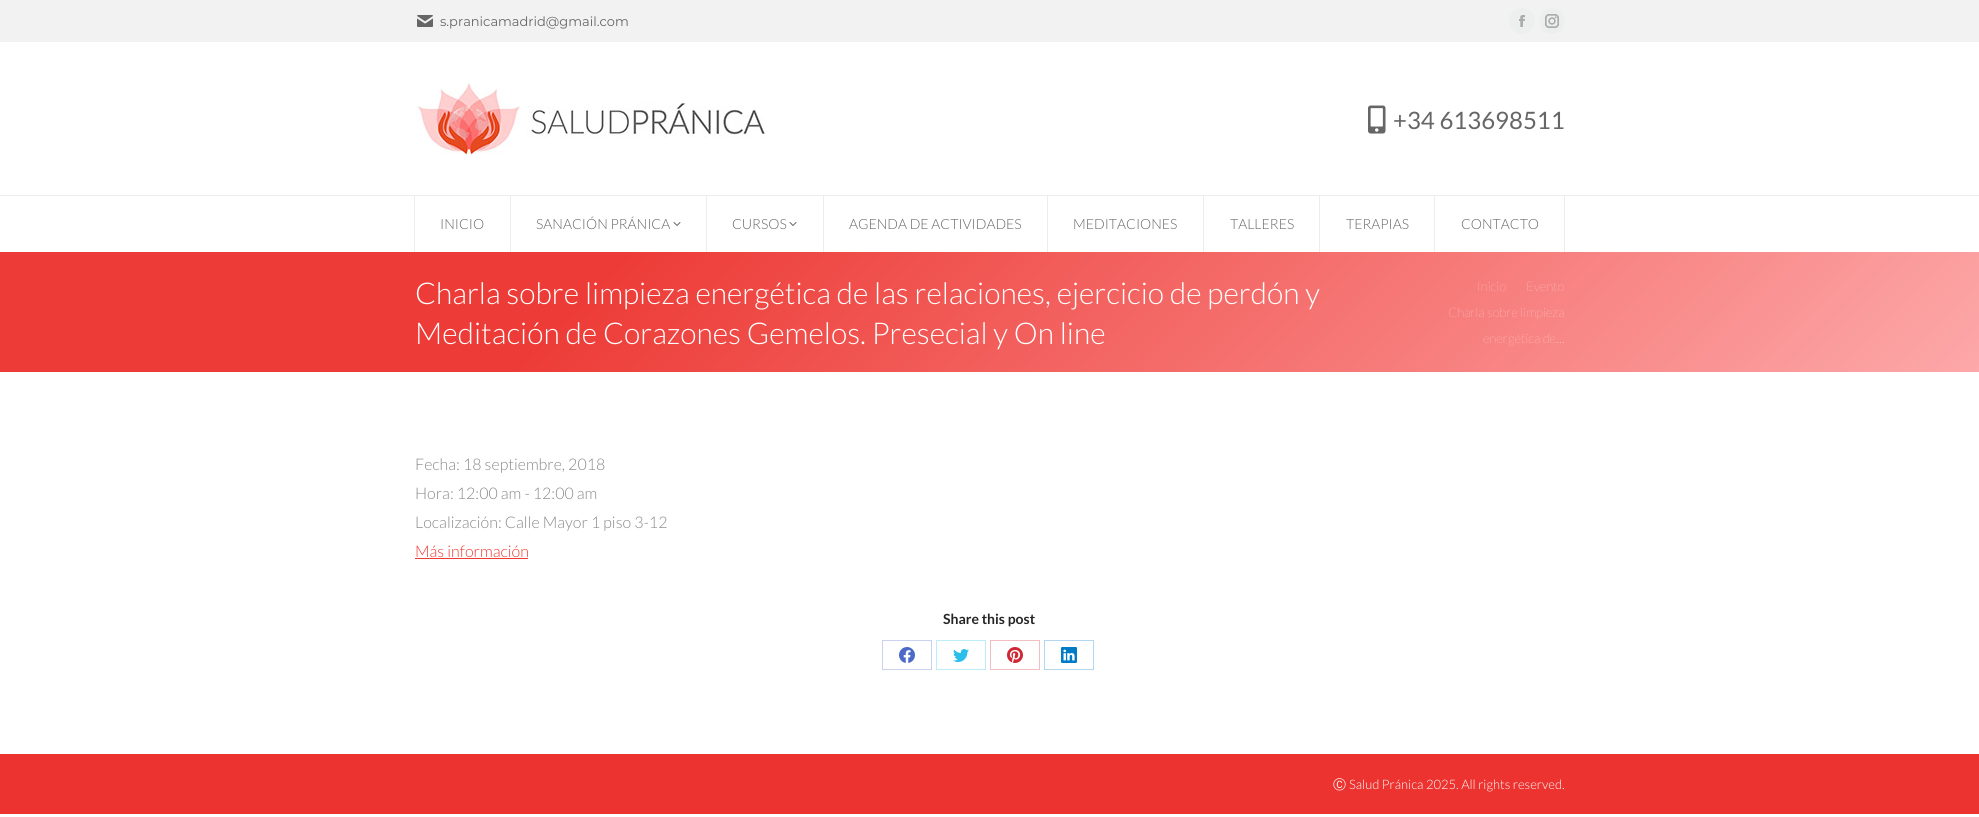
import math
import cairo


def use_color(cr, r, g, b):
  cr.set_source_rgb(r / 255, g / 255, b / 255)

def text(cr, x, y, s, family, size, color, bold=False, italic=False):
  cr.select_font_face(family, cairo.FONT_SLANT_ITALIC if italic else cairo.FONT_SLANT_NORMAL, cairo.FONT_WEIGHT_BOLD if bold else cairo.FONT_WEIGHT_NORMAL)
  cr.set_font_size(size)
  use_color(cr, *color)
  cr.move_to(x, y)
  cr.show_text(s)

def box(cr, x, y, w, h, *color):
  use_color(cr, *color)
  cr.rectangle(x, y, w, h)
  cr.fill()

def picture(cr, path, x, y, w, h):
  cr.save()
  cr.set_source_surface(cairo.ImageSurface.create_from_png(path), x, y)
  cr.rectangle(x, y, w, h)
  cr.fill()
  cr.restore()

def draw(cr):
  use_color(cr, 255, 255, 255)
  cr.paint()
  box(cr, 0, 0, 1979, 42, 242, 242, 242)
  picture(cr, "img_01.png", 417, 15, 16, 12)
  use_color(cr, 237, 238, 238)
  cr.arc(1522, 21, 13, 0, 2 * math.pi)
  cr.fill()
  picture(cr, "img_02.png", 1519, 15, 6, 12)
  cr.arc(1552, 21, 13, 0, 2 * math.pi)
  cr.fill()
  picture(cr, "img_03.png", 1545, 14, 14, 14)
  picture(cr, "img_04.png", 415, 82, 350, 73)
  picture(cr, "img_05.png", 1368, 105, 18, 29)
  box(cr, 0, 195, 1979, 1, 237, 237, 237)
  box(cr, 414, 196, 1, 56, 237, 237, 237)
  box(cr, 510, 196, 1, 56, 237, 237, 237)
  picture(cr, "img_06.png", 673, 222, 8, 4)
  box(cr, 706, 196, 1, 56, 237, 237, 237)
  picture(cr, "img_06.png", 789, 222, 8, 4)
  box(cr, 823, 196, 1, 56, 237, 237, 237)
  box(cr, 1047, 196, 1, 56, 237, 237, 237)
  box(cr, 1203, 196, 1, 56, 237, 237, 237)
  box(cr, 1319, 196, 1, 56, 237, 237, 237)
  box(cr, 1434, 196, 1, 56, 237, 237, 237)
  box(cr, 1564, 196, 1, 56, 237, 237, 237)
  gradient = cairo.LinearGradient(465, -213, 1514, 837)
  gradient.add_color_stop_rgba(0.3, 0.929, 0.235, 0.216, 1)
  gradient.add_color_stop_rgba(1, 0.992, 0.659, 0.663, 1)
  cr.set_source(gradient)
  cr.rectangle(0, 252, 1979, 120)
  cr.fill()
  box(cr, 415, 558, 113, 1, 239, 58, 47)
  cr.rectangle(882.5, 640.5, 49, 29)
  use_color(cr, 201, 210, 238)
  cr.set_line_width(1)
  cr.stroke()
  picture(cr, "img_07.png", 899, 647, 16, 16)
  cr.rectangle(936.5, 640.5, 49, 29)
  use_color(cr, 191, 236, 249)
  cr.stroke()
  picture(cr, "img_08.png", 953, 649, 16, 13)
  cr.rectangle(990.5, 640.5, 49, 29)
  use_color(cr, 241, 191, 194)
  cr.stroke()
  picture(cr, "img_09.png", 1007, 647, 16, 16)
  cr.rectangle(1044.5, 640.5, 49, 29)
  use_color(cr, 179, 215, 238)
  cr.stroke()
  picture(cr, "img_10.png", 1061, 647, 16, 16)
  box(cr, 0, 754, 1979, 60, 236, 51, 48)
  text(cr, 440, 26, "s.pranicamadrid@gmail.com", "Montserrat", 13, (102, 102, 102))
  text(cr, 1393, 129, "+34 613698511", "Lato", 24, (102, 102, 102))
  text(cr, 440, 229, "INICIO", "Lato Light", 14, (102, 102, 102))
  text(cr, 536, 229, "SANACIÓN PRÁNICA", "Lato Light", 14, (102, 102, 102))
  text(cr, 732, 229, "CURSOS", "Lato Light", 14, (102, 102, 102))
  text(cr, 849, 229, "AGENDA DE ACTIVIDADES", "Lato Light", 14, (102, 102, 102))
  text(cr, 1073, 229, "MEDITACIONES", "Lato Light", 14, (102, 102, 102))
  text(cr, 1230, 229, "TALLERES", "Lato Light", 14, (102, 102, 102))
  text(cr, 1346, 229, "TERAPIAS", "Lato Light", 14, (102, 102, 102))
  text(cr, 1461, 229, "CONTACTO", "Lato Light", 14, (102, 102, 102))
  text(cr, 415, 304, "Charla sobre limpieza energética de las relaciones, ejercicio de perdón y", "Lato Light", 30, (255, 255, 255))
  text(cr, 415, 344, "Meditación de Corazones Gemelos. Presecial y On line", "Lato Light", 30, (255, 255, 255))
  text(cr, 1477, 291, "Inicio", "Lato Thin", 13, (255, 255, 255))
  text(cr, 1526, 291, "Evento", "Lato Thin", 13, (255, 255, 255))
  text(cr, 1448, 317, "Charla sobre limpieza", "Lato Thin", 13, (255, 255, 255))
  text(cr, 1483, 343, "energética de…", "Lato Thin", 13, (255, 255, 255))
  text(cr, 415, 470, "Fecha: 18 septiembre, 2018", "Lato Light", 16, (137, 137, 137))
  text(cr, 415, 499, "Hora: 12:00 am - 12:00 am", "Lato Light", 16, (137, 137, 137))
  text(cr, 415, 528, "Localización: Calle Mayor 1 piso 3-12", "Lato Light", 16, (137, 137, 137))
  text(cr, 415, 557, "Más información", "Lato Light", 16, (239, 58, 47))
  text(cr, 943, 624, "Share this post", "Lato", 14, (37, 37, 37), bold=True)
  text(cr, 1333, 789, "Ⓒ", "WenQuanYi Zen Hei Medium", 13, (255, 255, 255))
  text(cr, 1349, 789, "Salud Pránica 2025. All rights reserved.", "Lato Light", 13, (255, 255, 255))


surface = cairo.ImageSurface(cairo.FORMAT_RGB24, 1979, 817)
cr = cairo.Context(surface)
options = cairo.FontOptions()
options.set_hint_metrics(cairo.HINT_METRICS_OFF)
options.set_hint_style(cairo.HINT_STYLE_NONE)
cr.set_font_options(options)
cr.set_miter_limit(4)
draw(cr)
surface.write_to_png("out.png")
